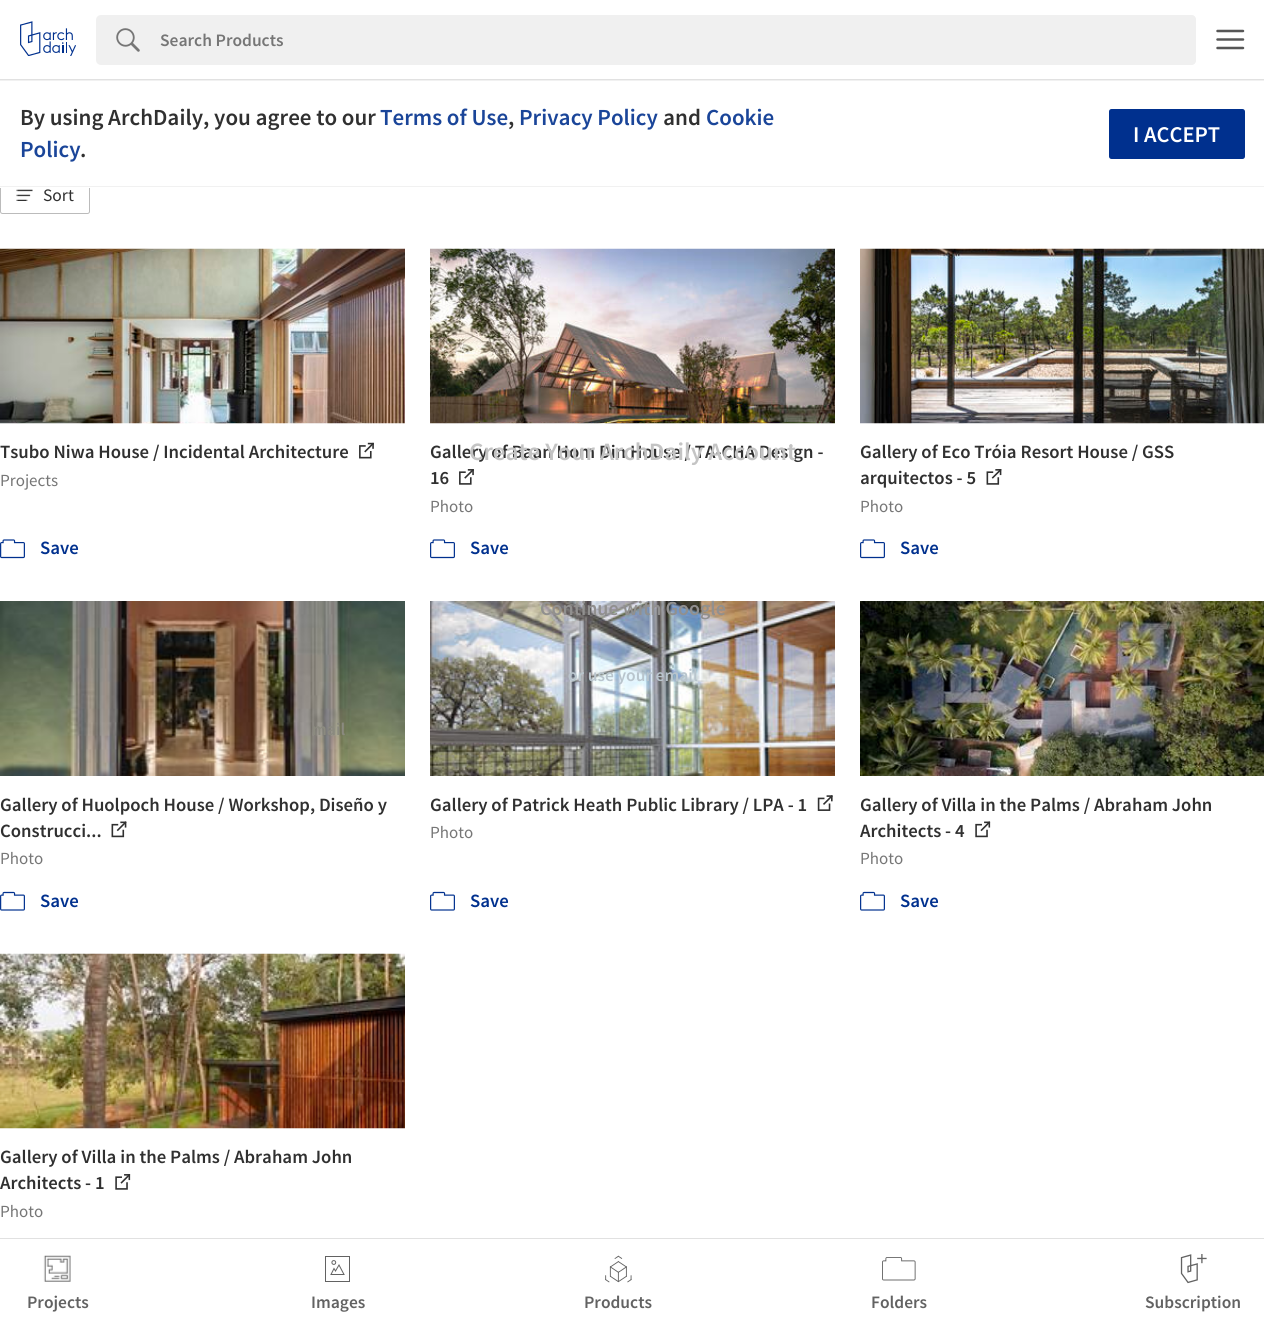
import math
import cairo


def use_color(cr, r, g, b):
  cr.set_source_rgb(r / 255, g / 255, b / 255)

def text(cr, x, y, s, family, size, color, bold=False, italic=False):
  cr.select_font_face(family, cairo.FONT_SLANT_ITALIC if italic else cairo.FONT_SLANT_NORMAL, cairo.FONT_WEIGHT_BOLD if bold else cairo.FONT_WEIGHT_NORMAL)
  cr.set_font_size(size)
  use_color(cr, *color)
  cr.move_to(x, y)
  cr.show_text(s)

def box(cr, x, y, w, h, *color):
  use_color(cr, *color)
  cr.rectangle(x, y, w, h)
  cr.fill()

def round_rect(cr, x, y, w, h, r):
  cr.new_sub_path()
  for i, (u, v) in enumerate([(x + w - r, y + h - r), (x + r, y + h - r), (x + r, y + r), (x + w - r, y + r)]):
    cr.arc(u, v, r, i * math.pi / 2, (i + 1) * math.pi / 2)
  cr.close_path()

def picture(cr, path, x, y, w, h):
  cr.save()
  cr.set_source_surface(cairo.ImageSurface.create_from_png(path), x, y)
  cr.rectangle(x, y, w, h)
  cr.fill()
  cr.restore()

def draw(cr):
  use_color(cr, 255, 255, 255)
  cr.paint()
  box(cr, 0, 79, 1264, 1, 225, 225, 225)
  picture(cr, "img_01.png", 20, 21, 56, 35)
  use_color(cr, 240, 240, 240)
  round_rect(cr, 96, 15, 1100, 50, 5)
  cr.fill()
  picture(cr, "img_02.png", 116, 28, 24, 24)
  cr.new_path()
  cr.move_to(160, 15)
  cr.line_to(1191, 15)
  cr.curve_to(1194, 15, 1196, 17, 1196, 20)
  cr.line_to(1196, 60)
  cr.curve_to(1196, 63, 1194, 65, 1191, 65)
  cr.line_to(160, 65)
  cr.close_path()
  cr.fill()
  cr.new_path()
  cr.move_to(1217.5, 31)
  cr.line_to(1243, 31)
  cr.move_to(1217.5, 39.5)
  cr.line_to(1243, 39.5)
  cr.move_to(1217.5, 48)
  cr.line_to(1243, 48)
  use_color(cr, 86, 86, 86)
  cr.set_line_width(2.5)
  cr.set_line_cap(cairo.LINE_CAP_ROUND)
  cr.stroke()
  round_rect(cr, 0.5, 179.5, 89, 34, 2)
  use_color(cr, 187, 187, 187)
  cr.set_line_width(1)
  cr.set_line_cap(cairo.LINE_CAP_BUTT)
  cr.stroke()
  box(cr, 0, 179, 90, 9, 255, 255, 255)
  box(cr, 0, 80, 1264, 1, 241, 241, 241)
  box(cr, 0, 186, 1264, 1, 241, 241, 241)
  use_color(cr, 0, 48, 142)
  round_rect(cr, 1109, 109, 136, 50, 2.5)
  cr.fill()
  picture(cr, "img_03.png", 16, 189, 17, 12)
  picture(cr, "img_04.png", 0, 248, 405, 176)
  picture(cr, "img_05.png", 359, 442, 15, 17)
  picture(cr, "img_06.png", 0, 539, 25, 20)
  picture(cr, "img_07.png", 430, 248, 405, 176)
  picture(cr, "img_08.png", 459, 469, 15, 16)
  picture(cr, "img_06.png", 430, 539, 25, 20)
  picture(cr, "img_09.png", 860, 248, 404, 176)
  picture(cr, "img_10.png", 986, 469, 16, 16)
  picture(cr, "img_06.png", 860, 539, 25, 20)
  picture(cr, "img_11.png", 0, 601, 405, 175)
  picture(cr, "img_12.png", 111, 821, 16, 17)
  picture(cr, "img_13.png", 0, 891, 25, 20)
  picture(cr, "img_14.png", 430, 601, 405, 175)
  picture(cr, "img_15.png", 817, 795, 16, 16)
  picture(cr, "img_13.png", 430, 891, 25, 20)
  picture(cr, "img_16.png", 860, 601, 404, 175)
  picture(cr, "img_17.png", 975, 821, 16, 17)
  picture(cr, "img_13.png", 860, 891, 25, 20)
  picture(cr, "img_18.png", 0, 953, 405, 176)
  picture(cr, "img_19.png", 115, 1174, 16, 16)
  box(cr, 0, 1238, 1264, 1, 225, 225, 225)
  picture(cr, "img_20.png", 43, 1255, 28, 27)
  cr.rectangle(325.5, 1256.5, 24, 25)
  use_color(cr, 98, 98, 98)
  cr.stroke()
  cr.new_path()
  cr.move_to(339, 1265)
  cr.line_to(344, 1274.5)
  cr.line_to(331, 1274.5)
  cr.line_to(334, 1268.5)
  cr.line_to(335.5, 1271)
  cr.close_path()
  cr.set_line_cap(cairo.LINE_CAP_ROUND)
  cr.stroke()
  cr.arc(333.8, 1262.5, 1.9, 0, 2 * math.pi)
  cr.set_line_cap(cairo.LINE_CAP_BUTT)
  cr.stroke()
  picture(cr, "img_21.png", 605, 1255, 27, 28)
  picture(cr, "img_22.png", 882, 1257, 34, 24)
  picture(cr, "img_23.png", 1180, 1254, 27, 30)
  text(cr, 160, 46, "Search Products", "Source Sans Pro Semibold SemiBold", 17.5, (118, 118, 118))
  text(cr, 20, 125, "By using ArchDaily, you agree to our", "Source Sans Pro Semibold SemiBold", 23, (48, 48, 48))
  text(cr, 380, 125, "Terms of Use", "Source Sans Pro Semibold SemiBold", 23, (26, 69, 153))
  text(cr, 508, 125, ",", "Source Sans Pro Semibold SemiBold", 23, (48, 48, 48))
  text(cr, 519, 125, "Privacy Policy", "Source Sans Pro Semibold SemiBold", 23, (26, 69, 153))
  text(cr, 663, 125, "and", "Source Sans Pro Semibold SemiBold", 23, (48, 48, 48))
  text(cr, 706, 125, "Cookie", "Source Sans Pro Semibold SemiBold", 23, (26, 69, 153))
  text(cr, 20, 157, "Policy", "Source Sans Pro Semibold SemiBold", 23, (26, 69, 153))
  text(cr, 80, 157, ".", "Source Sans Pro Semibold SemiBold", 23, (48, 48, 48))
  text(cr, 1133, 142, "I ACCEPT", "Source Sans Pro Semibold SemiBold", 22.5, (255, 255, 255))
  text(cr, 43, 201, "Sort", "Source Sans Pro", 17.5, (48, 48, 48))
  text(cr, 0, 458, "Tsubo Niwa House / Incidental Architecture", "Source Sans Pro Semibold SemiBold", 18.75, (48, 48, 48))
  text(cr, 0, 486, "Projects", "Source Sans Pro", 17, (118, 118, 118))
  text(cr, 40, 554, "Save", "Source Sans Pro Semibold SemiBold", 18.75, (0, 48, 142))
  text(cr, 430, 458, "Gallery of Baan Hom Din House / TA-CHA Design -", "Source Sans Pro Semibold SemiBold", 18.75, (48, 48, 48))
  text(cr, 430, 484, "16", "Source Sans Pro Semibold SemiBold", 18.75, (48, 48, 48))
  text(cr, 430, 512, "Photo", "Source Sans Pro", 17, (118, 118, 118))
  text(cr, 470, 554, "Save", "Source Sans Pro Semibold SemiBold", 18.75, (0, 48, 142))
  text(cr, 860, 458, "Gallery of Eco Tróia Resort House / GSS", "Source Sans Pro Semibold SemiBold", 18.75, (48, 48, 48))
  text(cr, 860, 484, "arquitectos - 5", "Source Sans Pro Semibold SemiBold", 18.75, (48, 48, 48))
  text(cr, 860, 512, "Photo", "Source Sans Pro", 17, (118, 118, 118))
  text(cr, 900, 554, "Save", "Source Sans Pro Semibold SemiBold", 18.75, (0, 48, 142))
  text(cr, 0, 811, "Gallery of Huolpoch House / Workshop, Diseño y", "Source Sans Pro Semibold SemiBold", 18.75, (48, 48, 48))
  text(cr, 0, 837, "Construcci...", "Source Sans Pro Semibold SemiBold", 18.75, (48, 48, 48))
  text(cr, 0, 864, "Photo", "Source Sans Pro", 17, (118, 118, 118))
  text(cr, 40, 907, "Save", "Source Sans Pro Semibold SemiBold", 18.75, (0, 48, 142))
  text(cr, 430, 811, "Gallery of Patrick Heath Public Library / LPA - 1", "Source Sans Pro Semibold SemiBold", 18.75, (48, 48, 48))
  text(cr, 430, 838, "Photo", "Source Sans Pro", 17, (118, 118, 118))
  text(cr, 470, 907, "Save", "Source Sans Pro Semibold SemiBold", 18.75, (0, 48, 142))
  text(cr, 860, 811, "Gallery of Villa in the Palms / Abraham John", "Source Sans Pro Semibold SemiBold", 18.75, (48, 48, 48))
  text(cr, 860, 837, "Architects - 4", "Source Sans Pro Semibold SemiBold", 18.75, (48, 48, 48))
  text(cr, 860, 864, "Photo", "Source Sans Pro", 17, (118, 118, 118))
  text(cr, 900, 907, "Save", "Source Sans Pro Semibold SemiBold", 18.75, (0, 48, 142))
  text(cr, 0, 1163, "Gallery of Villa in the Palms / Abraham John", "Source Sans Pro Semibold SemiBold", 18.75, (48, 48, 48))
  text(cr, 0, 1189, "Architects - 1", "Source Sans Pro Semibold SemiBold", 18.75, (48, 48, 48))
  text(cr, 0, 1217, "Photo", "Source Sans Pro", 17, (118, 118, 118))
  text(cr, 469, 460, "Create Your ArchDaily Account", "Source Sans Pro Semibold SemiBold", 25, (196, 196, 196))
  text(cr, 540, 615, "Continue with Google", "Source Sans Pro Semibold SemiBold", 20, (145, 144, 143))
  text(cr, 568, 681, "or use your email", "Source Sans Pro Semibold SemiBold", 17.5, (185, 197, 205))
  text(cr, 312, 735, "mail", "Source Sans Pro Semibold SemiBold", 17.5, (139, 138, 127))
  text(cr, 27, 1308, "Projects", "Source Sans Pro Semibold SemiBold", 17.5, (98, 98, 98))
  text(cr, 311, 1308, "Images", "Source Sans Pro Semibold SemiBold", 17.5, (98, 98, 98))
  text(cr, 584, 1308, "Products", "Source Sans Pro Semibold SemiBold", 17.5, (98, 98, 98))
  text(cr, 871, 1308, "Folders", "Source Sans Pro Semibold SemiBold", 17.5, (98, 98, 98))
  text(cr, 1145, 1308, "Subscription", "Source Sans Pro Semibold SemiBold", 17.5, (98, 98, 98))


surface = cairo.ImageSurface(cairo.FORMAT_RGB24, 1264, 1331)
cr = cairo.Context(surface)
options = cairo.FontOptions()
options.set_hint_metrics(cairo.HINT_METRICS_OFF)
options.set_hint_style(cairo.HINT_STYLE_NONE)
cr.set_font_options(options)
cr.set_miter_limit(4)
draw(cr)
surface.write_to_png("out.png")
